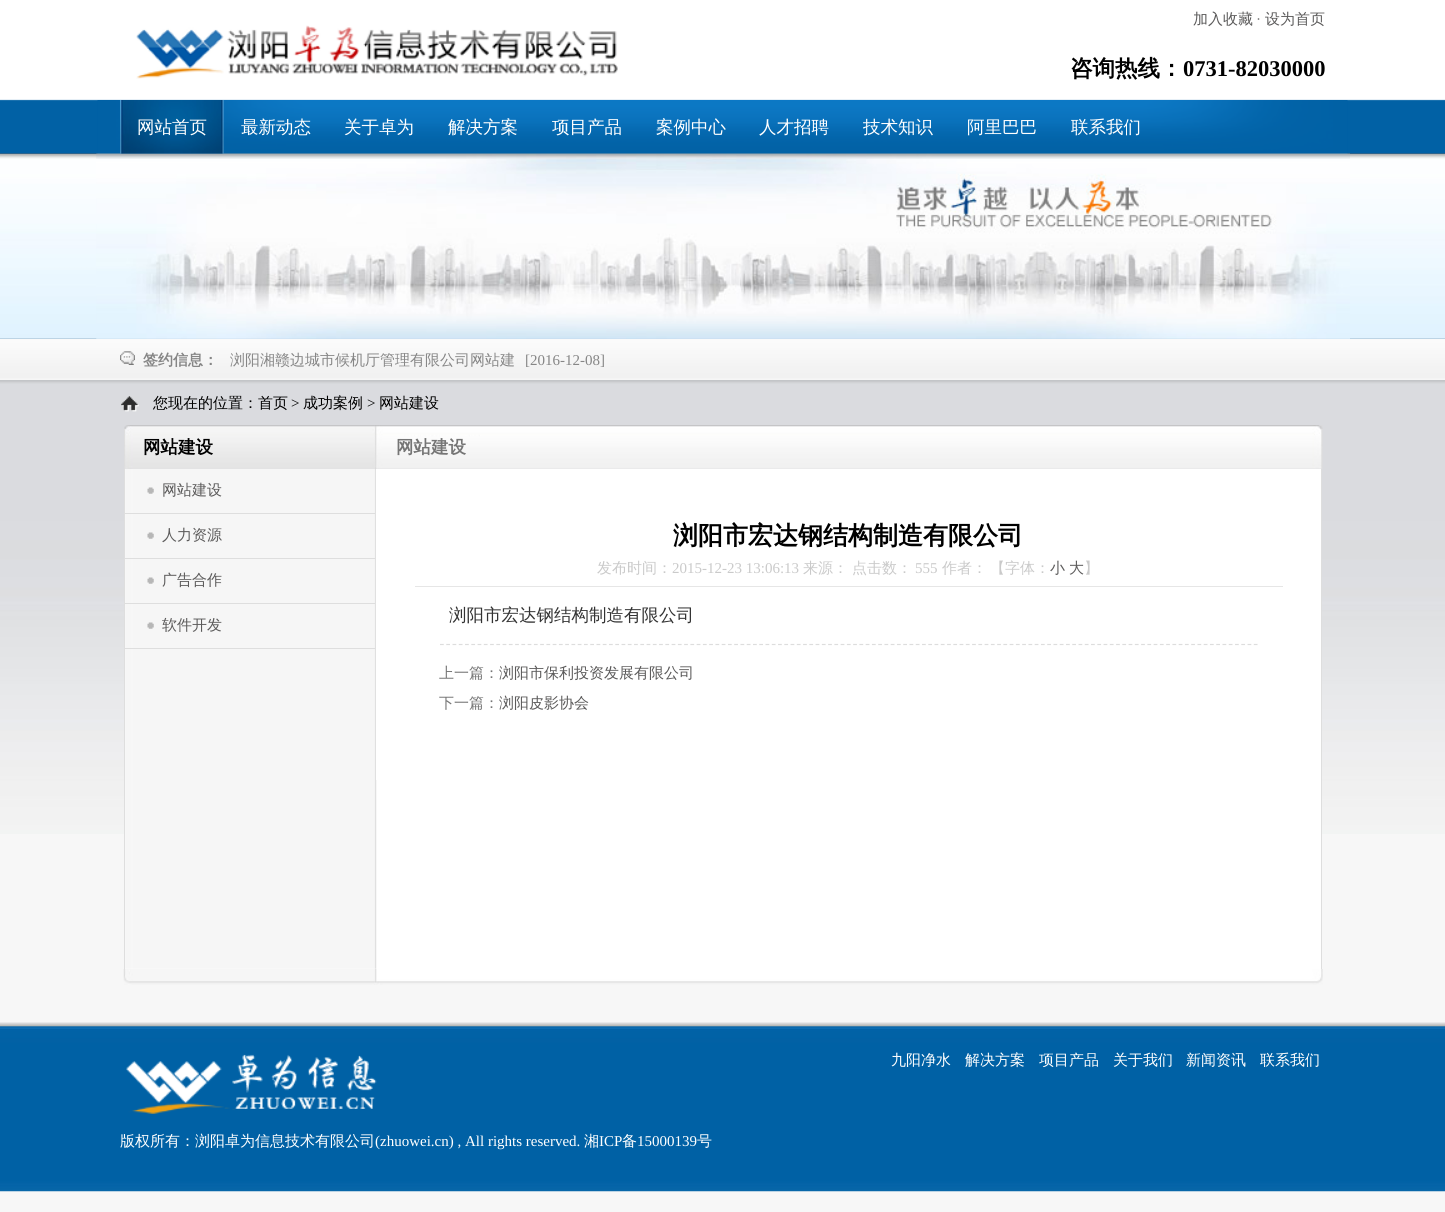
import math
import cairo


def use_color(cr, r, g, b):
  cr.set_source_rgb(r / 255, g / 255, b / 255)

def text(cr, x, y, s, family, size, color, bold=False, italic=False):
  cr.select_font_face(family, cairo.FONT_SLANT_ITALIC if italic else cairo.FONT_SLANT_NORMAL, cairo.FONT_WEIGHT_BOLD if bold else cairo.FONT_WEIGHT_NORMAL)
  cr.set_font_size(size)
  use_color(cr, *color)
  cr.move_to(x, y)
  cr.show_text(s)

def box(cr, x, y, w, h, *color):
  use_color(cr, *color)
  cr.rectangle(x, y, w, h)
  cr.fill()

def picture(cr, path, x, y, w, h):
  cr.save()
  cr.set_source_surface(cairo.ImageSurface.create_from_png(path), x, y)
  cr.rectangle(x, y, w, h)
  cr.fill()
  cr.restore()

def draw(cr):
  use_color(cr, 247, 247, 247)
  cr.paint()
  picture(cr, "img_01.png", 0, 0, 1445, 834)
  picture(cr, "img_02.png", 136, 25, 482, 54)
  picture(cr, "img_03.png", 97, 100, 1251, 54)
  picture(cr, "img_05.png", 0, 153, 1445, 186)
  picture(cr, "img_04.png", 120, 100, 104, 54)
  picture(cr, "img_06.png", 96, 153, 1254, 186)
  picture(cr, "img_07.png", 120, 351, 15, 14)
  picture(cr, "img_08.png", 121, 396, 18, 16)
  box(cr, 125, 780, 1196, 189, 255, 255, 255)
  picture(cr, "img_10.png", 125, 468, 252, 501)
  picture(cr, "img_09.png", 124, 425, 1199, 44)
  box(cr, 1321, 469, 1, 500, 222, 222, 222)
  box(cr, 124, 469, 1, 500, 222, 222, 222)
  box(cr, 125, 513, 250, 1, 222, 222, 222)
  picture(cr, "img_11.png", 147, 487, 7, 7)
  box(cr, 125, 558, 250, 1, 222, 222, 222)
  picture(cr, "img_11.png", 147, 532, 7, 7)
  box(cr, 125, 603, 250, 1, 222, 222, 222)
  picture(cr, "img_11.png", 147, 577, 7, 7)
  box(cr, 125, 648, 250, 1, 222, 222, 222)
  picture(cr, "img_11.png", 147, 622, 7, 7)
  box(cr, 376, 469, 945, 311, 255, 255, 255)
  box(cr, 415, 586, 868, 1, 230, 230, 230)
  cr.new_path()
  cr.move_to(440, 644.5)
  cr.line_to(1257.5, 644.5)
  use_color(cr, 221, 221, 221)
  cr.set_line_width(1.2)
  cr.set_dash([3.75, 2.51])
  cr.stroke()
  picture(cr, "img_12.png", 123, 969, 1200, 16)
  picture(cr, "img_13.png", 0, 1022, 1445, 170)
  picture(cr, "img_14.png", 126, 1054, 251, 60)
  text(cr, 1193, 24, "加入收藏", "WenQuanYi Zen Hei Medium", 15, (91, 90, 90))
  text(cr, 1256, 24, "·", "Liberation Serif", 15, (117, 117, 117))
  text(cr, 1265, 24, "设为首页", "WenQuanYi Zen Hei Medium", 15, (91, 90, 90))
  text(cr, 1070, 76, "咨询热线：", "WenQuanYi Zen Hei", 22.5, (0, 0, 0), bold=True)
  text(cr, 1183, 76, "0731-82030000", "Liberation Serif", 22.5, (0, 0, 0), bold=True)
  text(cr, 137, 133, "网站首页", "WenQuanYi Zen Hei Medium", 17.5, (255, 255, 255))
  text(cr, 241, 133, "最新动态", "WenQuanYi Zen Hei Medium", 17.5, (255, 255, 255))
  text(cr, 344, 133, "关于卓为", "WenQuanYi Zen Hei Medium", 17.5, (255, 255, 255))
  text(cr, 448, 133, "解决方案", "WenQuanYi Zen Hei Medium", 17.5, (255, 255, 255))
  text(cr, 552, 133, "项目产品", "WenQuanYi Zen Hei Medium", 17.5, (255, 255, 255))
  text(cr, 656, 133, "案例中心", "WenQuanYi Zen Hei Medium", 17.5, (255, 255, 255))
  text(cr, 759, 133, "人才招聘", "WenQuanYi Zen Hei Medium", 17.5, (255, 255, 255))
  text(cr, 863, 133, "技术知识", "WenQuanYi Zen Hei Medium", 17.5, (255, 255, 255))
  text(cr, 967, 133, "阿里巴巴", "WenQuanYi Zen Hei Medium", 17.5, (255, 255, 255))
  text(cr, 1071, 133, "联系我们", "WenQuanYi Zen Hei Medium", 17.5, (255, 255, 255))
  text(cr, 143, 365, "签约信息：", "WenQuanYi Zen Hei", 15, (134, 134, 134), bold=True)
  text(cr, 230, 365, "浏阳湘赣边城市候机厅管理有限公司网站建", "WenQuanYi Zen Hei Medium", 15, (134, 134, 134))
  text(cr, 525, 365, "[2016-12-08]", "Liberation Serif", 15, (134, 134, 134))
  text(cr, 153, 408, "您现在的位置：首页", "WenQuanYi Zen Hei Medium", 15, (0, 0, 0))
  text(cr, 291, 408, ">", "Liberation Serif", 15, (0, 0, 0))
  text(cr, 303, 408, "成功案例", "WenQuanYi Zen Hei Medium", 15, (0, 0, 0))
  text(cr, 367, 408, ">", "Liberation Serif", 15, (0, 0, 0))
  text(cr, 379, 408, "网站建设", "WenQuanYi Zen Hei Medium", 15, (0, 0, 0))
  text(cr, 143, 453, "网站建设", "WenQuanYi Zen Hei", 17.5, (0, 0, 0), bold=True)
  text(cr, 396, 453, "网站建设", "WenQuanYi Zen Hei", 17.5, (117, 117, 117), bold=True)
  text(cr, 162, 495, "网站建设", "WenQuanYi Zen Hei Medium", 15, (91, 90, 90))
  text(cr, 162, 540, "人力资源", "WenQuanYi Zen Hei Medium", 15, (91, 90, 90))
  text(cr, 162, 585, "广告合作", "WenQuanYi Zen Hei Medium", 15, (91, 90, 90))
  text(cr, 162, 630, "软件开发", "WenQuanYi Zen Hei Medium", 15, (91, 90, 90))
  text(cr, 673, 544, "浏阳市宏达钢结构制造有限公司", "WenQuanYi Zen Hei", 25, (0, 0, 0), bold=True)
  text(cr, 597, 573, "发布时间：", "WenQuanYi Zen Hei Medium", 15, (202, 202, 202))
  text(cr, 672, 573, "2015-12-23 13:06:13", "Liberation Serif", 15, (202, 202, 202))
  text(cr, 803, 573, "来源：", "WenQuanYi Zen Hei Medium", 15, (202, 202, 202))
  text(cr, 852, 573, "点击数：", "WenQuanYi Zen Hei Medium", 15, (202, 202, 202))
  text(cr, 915, 573, "555", "Liberation Serif", 15, (202, 202, 202))
  text(cr, 942, 573, "作者：", "WenQuanYi Zen Hei Medium", 15, (202, 202, 202))
  text(cr, 990, 573, "【字体：", "WenQuanYi Zen Hei Medium", 15, (202, 202, 202))
  text(cr, 1050, 573, "小", "WenQuanYi Zen Hei Medium", 15, (91, 90, 90))
  text(cr, 1069, 573, "大", "WenQuanYi Zen Hei Medium", 15, (91, 90, 90))
  text(cr, 1084, 573, "】", "WenQuanYi Zen Hei Medium", 15, (202, 202, 202))
  text(cr, 449, 621, "浏阳市宏达钢结构制造有限公司", "WenQuanYi Zen Hei Medium", 17.5, (51, 51, 51))
  text(cr, 439, 678, "上一篇：", "WenQuanYi Zen Hei Medium", 15, (117, 117, 117))
  text(cr, 499, 678, "浏阳市保利投资发展有限公司", "WenQuanYi Zen Hei Medium", 15, (91, 90, 90))
  text(cr, 439, 708, "下一篇：", "WenQuanYi Zen Hei Medium", 15, (117, 117, 117))
  text(cr, 499, 708, "浏阳皮影协会", "WenQuanYi Zen Hei Medium", 15, (91, 90, 90))
  text(cr, 891, 1065, "九阳净水", "WenQuanYi Zen Hei Medium", 15, (255, 255, 255))
  text(cr, 965, 1065, "解决方案", "WenQuanYi Zen Hei Medium", 15, (255, 255, 255))
  text(cr, 1039, 1065, "项目产品", "WenQuanYi Zen Hei Medium", 15, (255, 255, 255))
  text(cr, 1113, 1065, "关于我们", "WenQuanYi Zen Hei Medium", 15, (255, 255, 255))
  text(cr, 1186, 1065, "新闻资讯", "WenQuanYi Zen Hei Medium", 15, (255, 255, 255))
  text(cr, 1260, 1065, "联系我们", "WenQuanYi Zen Hei Medium", 15, (255, 255, 255))
  text(cr, 120, 1146, "版权所有：浏阳卓为信息技术有限公司", "WenQuanYi Zen Hei Medium", 15, (255, 255, 255))
  text(cr, 375, 1146, "(zhuowei.cn) , All rights reserved.", "Liberation Serif", 15, (255, 255, 255))
  text(cr, 584, 1146, "湘", "WenQuanYi Zen Hei Medium", 15, (255, 255, 255))
  text(cr, 599, 1146, "ICP", "Liberation Serif", 15, (255, 255, 255))
  text(cr, 622, 1146, "备", "WenQuanYi Zen Hei Medium", 15, (255, 255, 255))
  text(cr, 637, 1146, "15000139", "Liberation Serif", 15, (255, 255, 255))
  text(cr, 697, 1146, "号", "WenQuanYi Zen Hei Medium", 15, (255, 255, 255))


surface = cairo.ImageSurface(cairo.FORMAT_RGB24, 1445, 1212)
cr = cairo.Context(surface)
options = cairo.FontOptions()
options.set_hint_metrics(cairo.HINT_METRICS_OFF)
options.set_hint_style(cairo.HINT_STYLE_NONE)
cr.set_font_options(options)
cr.set_miter_limit(4)
draw(cr)
surface.write_to_png("out.png")
